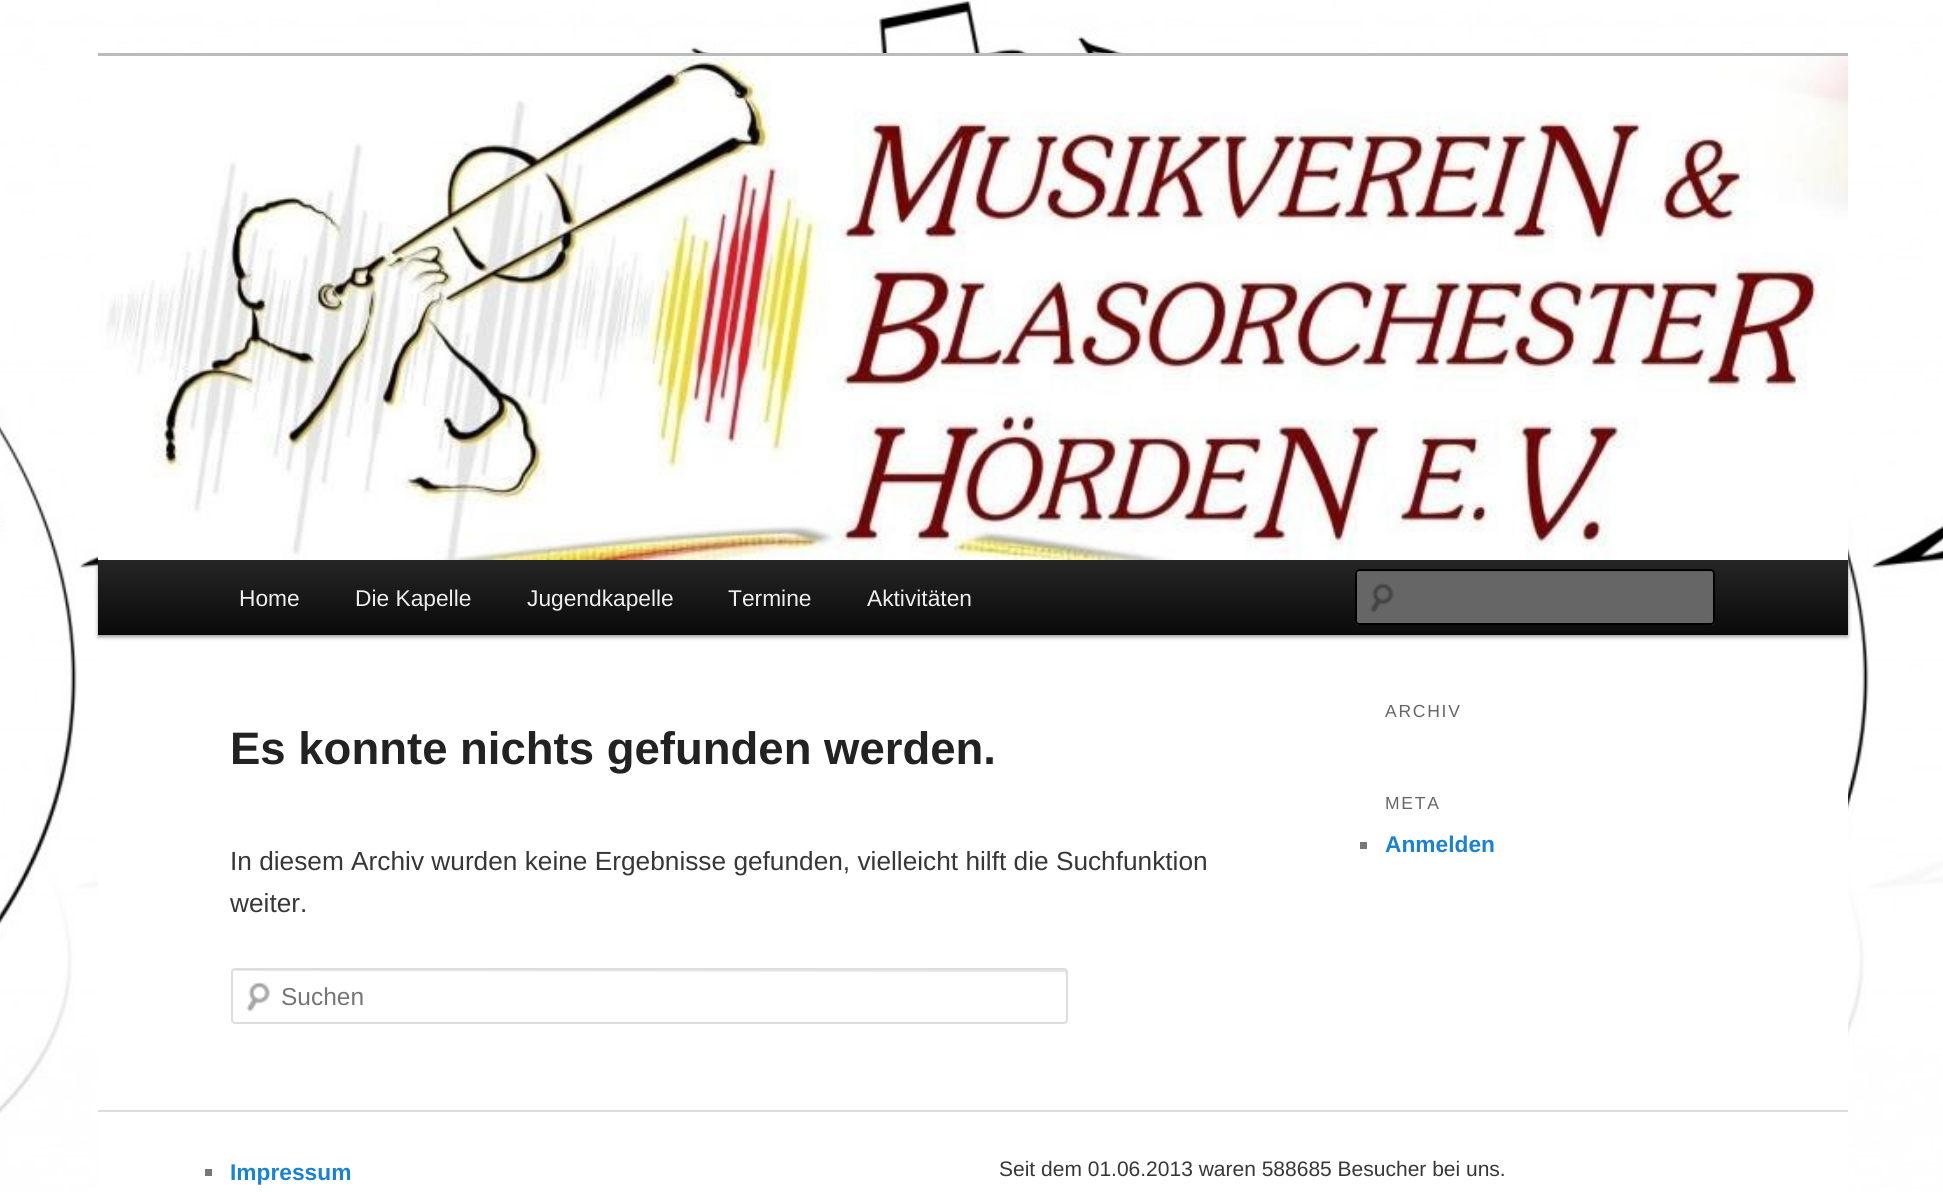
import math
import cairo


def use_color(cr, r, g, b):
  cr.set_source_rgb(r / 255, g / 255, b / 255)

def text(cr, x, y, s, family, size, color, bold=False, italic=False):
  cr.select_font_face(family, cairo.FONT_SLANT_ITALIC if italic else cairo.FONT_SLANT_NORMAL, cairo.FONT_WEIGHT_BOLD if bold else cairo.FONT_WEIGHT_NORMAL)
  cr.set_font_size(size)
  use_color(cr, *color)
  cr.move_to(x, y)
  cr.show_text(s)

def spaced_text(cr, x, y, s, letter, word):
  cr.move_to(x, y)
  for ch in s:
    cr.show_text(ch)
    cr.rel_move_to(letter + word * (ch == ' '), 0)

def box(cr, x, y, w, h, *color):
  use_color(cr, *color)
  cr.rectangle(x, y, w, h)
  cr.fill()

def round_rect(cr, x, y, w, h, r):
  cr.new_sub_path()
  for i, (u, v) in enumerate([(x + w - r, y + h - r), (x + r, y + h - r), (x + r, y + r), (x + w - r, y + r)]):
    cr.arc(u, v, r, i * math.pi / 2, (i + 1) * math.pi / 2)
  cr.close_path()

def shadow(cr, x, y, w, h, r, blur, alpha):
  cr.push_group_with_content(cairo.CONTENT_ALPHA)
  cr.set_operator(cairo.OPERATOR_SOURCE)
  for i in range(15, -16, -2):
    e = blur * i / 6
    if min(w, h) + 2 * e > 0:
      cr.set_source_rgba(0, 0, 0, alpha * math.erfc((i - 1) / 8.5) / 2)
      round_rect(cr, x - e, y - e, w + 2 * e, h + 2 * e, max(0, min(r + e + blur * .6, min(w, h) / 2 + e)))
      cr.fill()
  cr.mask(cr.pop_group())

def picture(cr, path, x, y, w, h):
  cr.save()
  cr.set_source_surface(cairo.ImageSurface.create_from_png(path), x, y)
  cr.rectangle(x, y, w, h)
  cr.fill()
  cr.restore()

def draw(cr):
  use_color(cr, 255, 255, 255)
  cr.paint()
  picture(cr, "img_01.png", 0, 0, 1943, 1194)
  box(cr, 98, 635, 1750, 559, 255, 255, 255)
  box(cr, 98, 53, 1750, 3, 187, 187, 187)
  use_color(cr, 0, 0, 0)
  shadow(cr, 98, 562, 1750, 75, 0, 2, 0.4)
  picture(cr, "img_02.png", 98, 56, 1750, 504)
  gradient = cairo.LinearGradient(973, 560, 973, 635)
  gradient.add_color_stop_rgba(0, 0.145, 0.145, 0.145, 1)
  gradient.add_color_stop_rgba(1, 0.039, 0.039, 0.039, 1)
  cr.set_source(gradient)
  cr.rectangle(98, 560, 1750, 75)
  cr.fill()
  use_color(cr, 102, 102, 102)
  round_rect(cr, 1355, 569, 360, 56, 4)
  cr.fill()
  picture(cr, "img_03.png", 1370, 583, 24, 30)
  use_color(cr, 92, 92, 92)
  cr.new_path()
  cr.move_to(1358, 572)
  cr.line_to(1712, 572)
  cr.line_to(1713, 574)
  cr.curve_to(1713, 573, 1713, 571, 1711, 571)
  cr.line_to(1358, 571)
  cr.curve_to(1356, 571, 1356, 573, 1356, 574)
  cr.curve_to(1356, 573, 1357, 572, 1358, 572)
  cr.close_path()
  cr.fill()
  round_rect(cr, 1356, 570, 358, 54, 3)
  use_color(cr, 0, 0, 0)
  cr.stroke()
  picture(cr, "img_04.png", 246, 982, 24, 30)
  use_color(cr, 230, 230, 230)
  cr.new_path()
  cr.move_to(234, 971)
  cr.line_to(1065, 972)
  cr.line_to(1066, 977)
  cr.line_to(1066, 972)
  cr.curve_to(1066, 971, 1065, 970, 1064, 970)
  cr.line_to(235, 970)
  cr.curve_to(234, 970, 233, 971, 233, 972)
  cr.close_path()
  cr.fill()
  round_rect(cr, 232, 969, 835, 54, 3)
  use_color(cr, 221, 221, 221)
  cr.stroke()
  box(cr, 1360, 842, 7, 7, 119, 119, 119)
  box(cr, 98, 1110, 1750, 2, 221, 221, 221)
  box(cr, 205, 1169, 7, 7, 119, 119, 119)
  text(cr, 239, 606, "Home", "Liberation Sans", 22.75, (238, 238, 238))
  text(cr, 355, 606, "Die Kapelle", "Liberation Sans", 22.75, (238, 238, 238))
  text(cr, 527, 606, "Jugendkapelle", "Liberation Sans", 22.75, (238, 238, 238))
  text(cr, 728, 606, "Termine", "Liberation Sans", 22.75, (238, 238, 238))
  text(cr, 867, 606, "Aktivitäten", "Liberation Sans", 22.75, (238, 238, 238))
  text(cr, 230, 764, "Es konnte nichts gefunden werden.", "Liberation Sans", 45.5, (34, 34, 34), bold=True)
  text(cr, 230, 870, "In diesem Archiv wurden keine Ergebnisse gefunden, vielleicht hilft die Suchfunktion", "Liberation Sans", 26.25, (55, 55, 55))
  text(cr, 230, 912, "weiter.", "Liberation Sans", 26.25, (55, 55, 55))
  text(cr, 281, 1005, "Suchen", "Liberation Sans", 24.5, (117, 117, 117))
  cr.set_font_size(17.5)
  use_color(cr, 102, 102, 102)
  spaced_text(cr, 1385, 717, "ARCHIV", 1.75, 0)
  spaced_text(cr, 1385, 809, "META", 1.75, 0)
  text(cr, 1385, 852, "Anmelden", "Liberation Sans", 22.75, (25, 130, 209), bold=True)
  text(cr, 230, 1180, "Impressum", "Liberation Sans", 22.75, (25, 130, 209), bold=True)
  text(cr, 999, 1176, "Seit dem 01.06.2013 waren 588685 Besucher bei uns.", "Liberation Sans", 21, (55, 55, 55))


surface = cairo.ImageSurface(cairo.FORMAT_RGB24, 1943, 1194)
cr = cairo.Context(surface)
options = cairo.FontOptions()
options.set_hint_metrics(cairo.HINT_METRICS_OFF)
options.set_hint_style(cairo.HINT_STYLE_NONE)
cr.set_font_options(options)
cr.set_miter_limit(4)
draw(cr)
surface.write_to_png("out.png")
